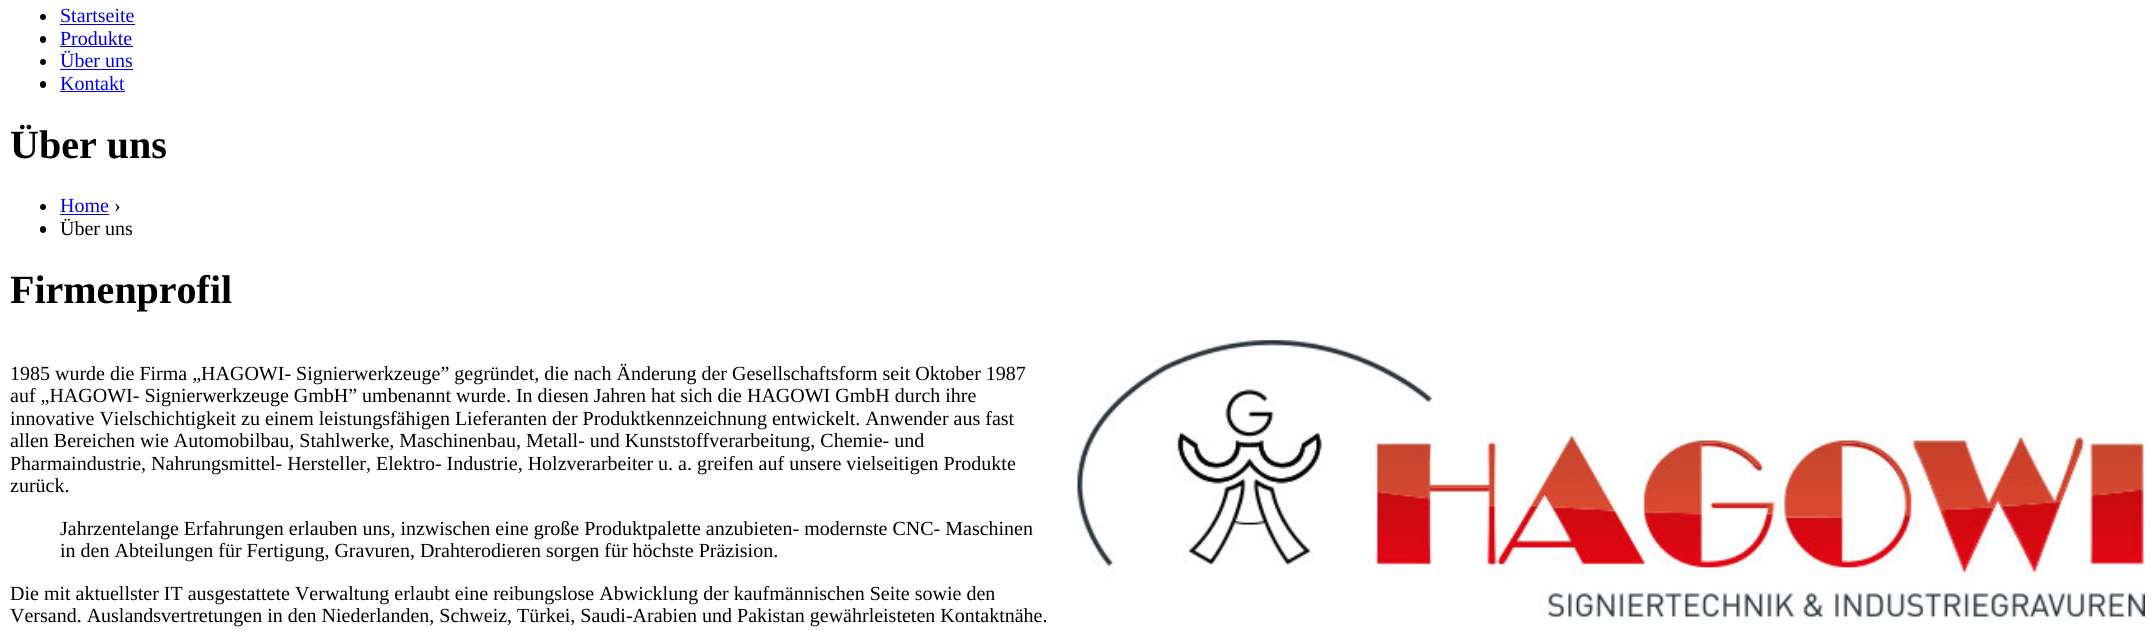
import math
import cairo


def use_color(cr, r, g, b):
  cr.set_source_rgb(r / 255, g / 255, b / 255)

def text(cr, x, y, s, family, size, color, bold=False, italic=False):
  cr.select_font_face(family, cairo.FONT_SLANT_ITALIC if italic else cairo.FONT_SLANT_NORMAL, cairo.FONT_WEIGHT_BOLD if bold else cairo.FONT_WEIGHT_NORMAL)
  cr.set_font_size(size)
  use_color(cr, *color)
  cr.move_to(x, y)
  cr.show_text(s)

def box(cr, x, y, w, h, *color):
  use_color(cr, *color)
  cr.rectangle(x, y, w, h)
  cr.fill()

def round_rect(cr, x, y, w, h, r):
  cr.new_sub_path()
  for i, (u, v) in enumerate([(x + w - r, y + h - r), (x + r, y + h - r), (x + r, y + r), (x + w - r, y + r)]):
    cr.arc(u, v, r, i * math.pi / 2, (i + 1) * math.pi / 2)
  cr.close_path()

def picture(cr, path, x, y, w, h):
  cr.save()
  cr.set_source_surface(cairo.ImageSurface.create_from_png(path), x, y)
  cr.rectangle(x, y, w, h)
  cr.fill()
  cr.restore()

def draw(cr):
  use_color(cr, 255, 255, 255)
  cr.paint()
  use_color(cr, 0, 0, 0)
  cr.arc(43, 17, 3, 0, 2 * math.pi)
  cr.fill()
  box(cr, 60, 24, 75, 1, 0, 0, 238)
  use_color(cr, 0, 0, 0)
  round_rect(cr, 40, 36, 6, 7, 3)
  cr.fill()
  box(cr, 60, 46, 73, 1, 0, 0, 238)
  use_color(cr, 0, 0, 0)
  cr.arc(43, 62, 3, 0, 2 * math.pi)
  cr.fill()
  box(cr, 60, 69, 73, 1, 0, 0, 238)
  use_color(cr, 0, 0, 0)
  round_rect(cr, 40, 81, 6, 7, 3)
  cr.fill()
  box(cr, 60, 91, 65, 1, 0, 0, 238)
  use_color(cr, 0, 0, 0)
  cr.arc(43, 207, 3, 0, 2 * math.pi)
  cr.fill()
  box(cr, 60, 214, 49, 1, 0, 0, 238)
  use_color(cr, 0, 0, 0)
  round_rect(cr, 40, 226, 6, 7, 3)
  cr.fill()
  picture(cr, "img_01.png", 1077, 340, 1068, 277)
  text(cr, 60, 22, "Startseite", "Liberation Serif", 20, (0, 0, 238))
  text(cr, 60, 45, "Produkte", "Liberation Serif", 20, (0, 0, 238))
  text(cr, 60, 67, "Über uns", "Liberation Serif", 20, (0, 0, 238))
  text(cr, 60, 90, "Kontakt", "Liberation Serif", 20, (0, 0, 238))
  text(cr, 10, 158, "Über uns", "Liberation Serif", 40, (0, 0, 0), bold=True)
  text(cr, 60, 212, "Home", "Liberation Serif", 20, (0, 0, 238))
  text(cr, 114, 212, "›", "Liberation Serif", 20, (0, 0, 0))
  text(cr, 60, 235, "Über uns", "Liberation Serif", 20, (0, 0, 0))
  text(cr, 10, 303, "Firmenprofil", "Liberation Serif", 40, (0, 0, 0), bold=True)
  text(cr, 10, 380, "1985 wurde die Firma „HAGOWI- Signierwerkzeuge” gegründet, die nach Änderung der Gesellschaftsform seit Oktober 1987", "Liberation Serif", 20, (0, 0, 0))
  text(cr, 10, 402, "auf „HAGOWI- Signierwerkzeuge GmbH” umbenannt wurde. In diesen Jahren hat sich die HAGOWI GmbH durch ihre", "Liberation Serif", 20, (0, 0, 0))
  text(cr, 10, 425, "innovative Vielschichtigkeit zu einem leistungsfähigen Lieferanten der Produktkennzeichnung entwickelt. Anwender aus fast", "Liberation Serif", 20, (0, 0, 0))
  text(cr, 10, 447, "allen Bereichen wie Automobilbau, Stahlwerke, Maschinenbau, Metall- und Kunststoffverarbeitung, Chemie- und", "Liberation Serif", 20, (0, 0, 0))
  text(cr, 10, 470, "Pharmaindustrie, Nahrungsmittel- Hersteller, Elektro- Industrie, Holzverarbeiter u. a. greifen auf unsere vielseitigen Produkte", "Liberation Serif", 20, (0, 0, 0))
  text(cr, 10, 492, "zurück.", "Liberation Serif", 20, (0, 0, 0))
  text(cr, 60, 535, "Jahrzentelange Erfahrungen erlauben uns, inzwischen eine große Produktpalette anzubieten- modernste CNC- Maschinen", "Liberation Serif", 20, (0, 0, 0))
  text(cr, 60, 557, "in den Abteilungen für Fertigung, Gravuren, Drahterodieren sorgen für höchste Präzision.", "Liberation Serif", 20, (0, 0, 0))
  text(cr, 10, 600, "Die mit aktuellster IT ausgestattete Verwaltung erlaubt eine reibungslose Abwicklung der kaufmännischen Seite sowie den", "Liberation Serif", 20, (0, 0, 0))
  text(cr, 10, 622, "Versand. Auslandsvertretungen in den Niederlanden, Schweiz, Türkei, Saudi-Arabien und Pakistan gewährleisteten Kontaktnähe.", "Liberation Serif", 20, (0, 0, 0))


surface = cairo.ImageSurface(cairo.FORMAT_RGB24, 2155, 631)
cr = cairo.Context(surface)
options = cairo.FontOptions()
options.set_hint_metrics(cairo.HINT_METRICS_OFF)
options.set_hint_style(cairo.HINT_STYLE_NONE)
cr.set_font_options(options)
cr.set_miter_limit(4)
draw(cr)
surface.write_to_png("out.png")
